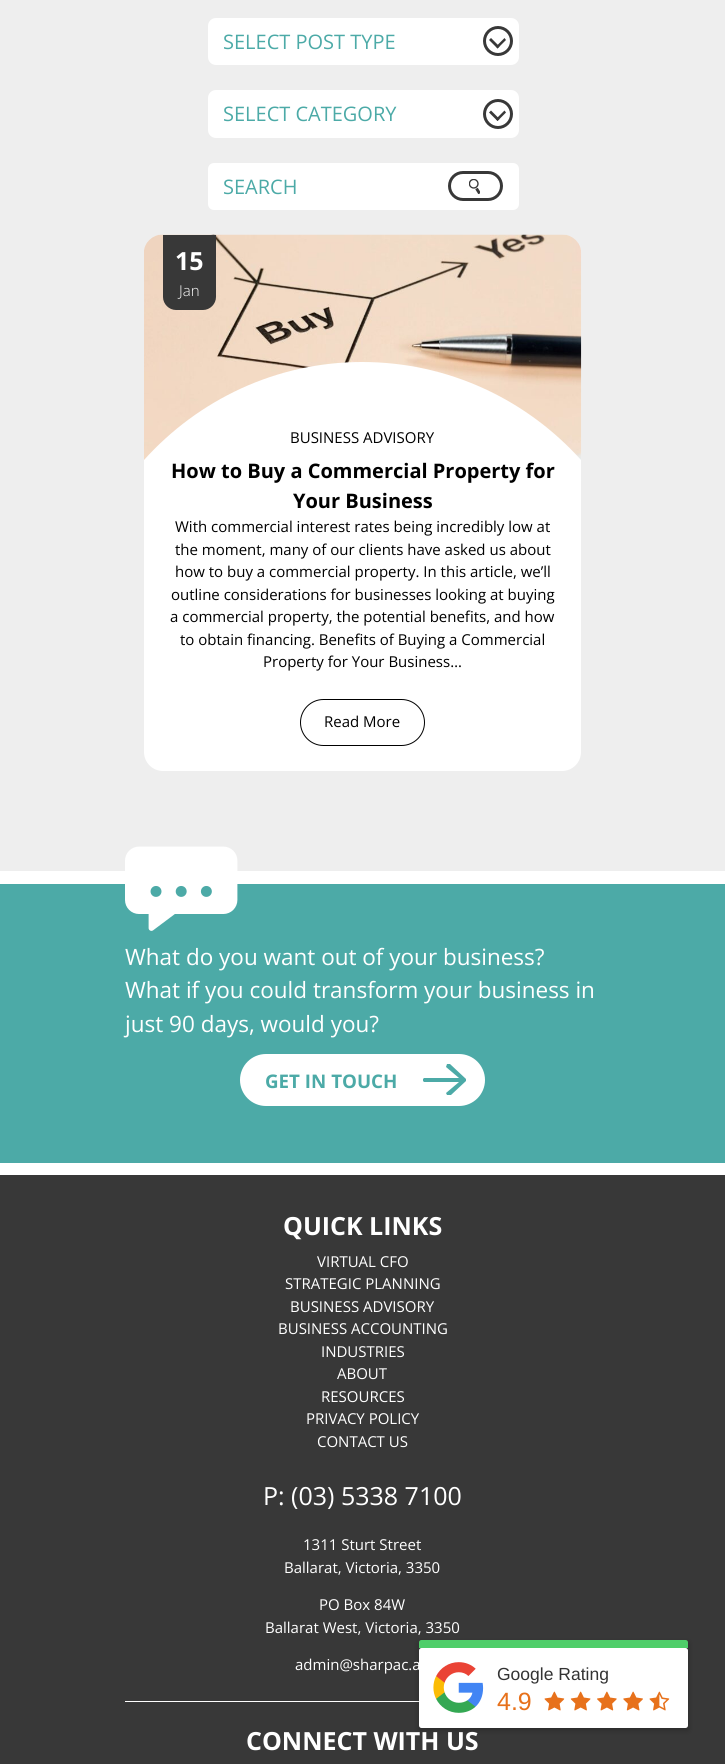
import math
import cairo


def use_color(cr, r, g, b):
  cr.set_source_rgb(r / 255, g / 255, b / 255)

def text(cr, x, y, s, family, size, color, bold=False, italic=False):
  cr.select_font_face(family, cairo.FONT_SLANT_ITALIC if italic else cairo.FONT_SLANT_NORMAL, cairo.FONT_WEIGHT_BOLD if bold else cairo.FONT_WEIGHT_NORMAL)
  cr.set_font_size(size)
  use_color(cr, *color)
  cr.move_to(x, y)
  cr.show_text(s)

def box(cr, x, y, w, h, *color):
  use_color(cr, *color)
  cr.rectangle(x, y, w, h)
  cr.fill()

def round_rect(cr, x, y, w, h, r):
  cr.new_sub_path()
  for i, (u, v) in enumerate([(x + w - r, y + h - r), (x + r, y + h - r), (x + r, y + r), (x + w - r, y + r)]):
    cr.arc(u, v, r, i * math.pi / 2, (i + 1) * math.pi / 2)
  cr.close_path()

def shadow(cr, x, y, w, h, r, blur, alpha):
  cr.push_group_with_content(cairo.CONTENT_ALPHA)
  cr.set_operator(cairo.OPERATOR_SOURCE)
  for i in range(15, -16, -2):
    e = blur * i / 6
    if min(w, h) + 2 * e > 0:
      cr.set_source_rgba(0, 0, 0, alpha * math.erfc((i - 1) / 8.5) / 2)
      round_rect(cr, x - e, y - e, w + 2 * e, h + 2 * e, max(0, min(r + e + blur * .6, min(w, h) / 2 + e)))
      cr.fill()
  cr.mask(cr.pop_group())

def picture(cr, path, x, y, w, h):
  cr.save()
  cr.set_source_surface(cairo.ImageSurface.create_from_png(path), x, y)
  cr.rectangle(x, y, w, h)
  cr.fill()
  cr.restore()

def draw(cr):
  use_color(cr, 255, 255, 255)
  cr.paint()
  box(cr, 0, 0, 725, 871, 238, 238, 238)
  use_color(cr, 255, 255, 255)
  round_rect(cr, 208, 18, 311, 47, 8)
  cr.fill()
  cr.arc(498, 41, 13.5, 0, 2 * math.pi)
  use_color(cr, 56, 56, 56)
  cr.set_line_width(3)
  cr.stroke()
  cr.new_path()
  cr.move_to(504.5, 38)
  cr.line_to(506, 40)
  cr.line_to(497.5, 48.5)
  cr.line_to(496, 46.5)
  cr.close_path()
  cr.fill()
  cr.new_path()
  cr.move_to(491, 38)
  cr.line_to(499.5, 46.5)
  cr.line_to(497.5, 48.5)
  cr.line_to(489, 40)
  cr.close_path()
  cr.fill()
  use_color(cr, 255, 255, 255)
  round_rect(cr, 208, 90, 311, 48, 8)
  cr.fill()
  cr.arc(498, 114, 13.5, 0, 2 * math.pi)
  use_color(cr, 56, 56, 56)
  cr.stroke()
  cr.new_path()
  cr.move_to(504.5, 110.5)
  cr.line_to(506, 112.5)
  cr.line_to(497.5, 121)
  cr.line_to(496, 119)
  cr.close_path()
  cr.fill()
  cr.new_path()
  cr.move_to(491, 110.5)
  cr.line_to(499.5, 119)
  cr.line_to(497.5, 121)
  cr.line_to(489, 112.5)
  cr.close_path()
  cr.fill()
  use_color(cr, 255, 255, 255)
  round_rect(cr, 208, 163, 311, 47, 6)
  cr.fill()
  picture(cr, "img_01.png", 469, 179, 11, 15)
  round_rect(cr, 449.5, 172.5, 52, 27, 13.5)
  use_color(cr, 56, 56, 56)
  cr.stroke()
  use_color(cr, 255, 255, 255)
  round_rect(cr, 144, 235, 437, 536, 19)
  cr.fill()
  picture(cr, "img_02.png", 144, 234, 438, 247)
  use_color(cr, 56, 56, 56)
  cr.new_path()
  cr.move_to(163, 235)
  cr.line_to(216, 235)
  cr.line_to(216, 297)
  cr.curve_to(216, 304, 210, 310, 203, 310)
  cr.line_to(176, 310)
  cr.curve_to(169, 310, 163, 304, 163, 297)
  cr.close_path()
  cr.fill()
  use_color(cr, 255, 255, 255)
  cr.new_path()
  cr.move_to(362, 362)
  cr.curve_to(276, 362, 198, 400, 144, 460)
  cr.line_to(144, 481)
  cr.line_to(581, 481)
  cr.line_to(581, 460)
  cr.curve_to(527, 400, 449, 362, 362, 362)
  cr.close_path()
  cr.fill()
  round_rect(cr, 300.5, 699.5, 124, 46, 23)
  use_color(cr, 0, 0, 0)
  cr.set_line_width(1)
  cr.stroke()
  box(cr, 0, 884, 725, 279, 76, 170, 167)
  picture(cr, "img_03.png", 125, 846, 113, 85)
  use_color(cr, 255, 255, 255)
  round_rect(cr, 240, 1054, 245, 52, 26)
  cr.fill()
  use_color(cr, 76, 170, 167)
  cr.new_path()
  cr.move_to(423, 1081)
  cr.line_to(423, 1079)
  cr.line_to(424, 1078)
  cr.line_to(459, 1078)
  cr.line_to(446, 1067)
  cr.line_to(447, 1064)
  cr.line_to(450, 1064)
  cr.line_to(466, 1079)
  cr.line_to(466, 1081)
  cr.line_to(451, 1095)
  cr.line_to(447, 1095)
  cr.line_to(446, 1093)
  cr.line_to(459, 1082)
  cr.line_to(424, 1082)
  cr.close_path()
  cr.fill()
  box(cr, 0, 1175, 725, 589, 56, 56, 56)
  box(cr, 125, 1701, 294, 1, 255, 255, 255)
  use_color(cr, 0, 0, 0)
  shadow(cr, 419, 1643, 269, 87, 0, 3, 0.26)
  use_color(cr, 79, 206, 106)
  cr.new_path()
  cr.move_to(421.5, 1640)
  cr.line_to(685.5, 1640)
  cr.curve_to(687, 1640, 688, 1641, 688, 1642.5)
  cr.line_to(688, 1648)
  cr.line_to(419, 1648)
  cr.line_to(419, 1642.5)
  cr.curve_to(419, 1641, 420, 1640, 421.5, 1640)
  cr.close_path()
  cr.fill()
  use_color(cr, 255, 255, 255)
  round_rect(cr, 419, 1648, 269, 80, 2.5)
  cr.fill()
  picture(cr, "img_04.png", 433, 1662, 51, 51)
  picture(cr, "img_05.png", 544, 1691, 21, 20)
  picture(cr, "img_06.png", 570, 1691, 21, 20)
  picture(cr, "img_07.png", 597, 1691, 20, 20)
  picture(cr, "img_08.png", 623, 1691, 20, 20)
  picture(cr, "img_09.png", 649, 1691, 21, 20)
  text(cr, 223, 49, "SELECT POST TYPE", "Open Sans", 20, (76, 170, 167))
  text(cr, 223, 121, "SELECT CATEGORY", "Open Sans", 20, (76, 170, 167))
  text(cr, 223, 194, "SEARCH", "Open Sans", 20, (76, 170, 167))
  text(cr, 175, 270, "15", "Open Sans", 25, (255, 255, 255), bold=True)
  text(cr, 179, 296, "Jan", "Open Sans Light", 15, (255, 255, 255))
  text(cr, 290, 443, "BUSINESS ADVISORY", "Open Sans", 15, (0, 0, 0))
  text(cr, 171, 478, "How to Buy a Commercial Property for", "Open Sans", 20, (0, 0, 0), bold=True)
  text(cr, 293, 508, "Your Business", "Open Sans", 20, (0, 0, 0), bold=True)
  text(cr, 175, 532, "With commercial interest rates being incredibly low at", "Open Sans", 15, (0, 0, 0))
  text(cr, 175, 555, "the moment, many of our clients have asked us about", "Open Sans", 15, (0, 0, 0))
  text(cr, 175, 577, "how to buy a commercial property. In this article, we’ll", "Open Sans", 15, (0, 0, 0))
  text(cr, 171, 600, "outline considerations for businesses looking at buying", "Open Sans", 15, (0, 0, 0))
  text(cr, 170, 622, "a commercial property, the potential benefits, and how", "Open Sans", 15, (0, 0, 0))
  text(cr, 180, 645, "to obtain financing. Benefits of Buying a Commercial", "Open Sans", 15, (0, 0, 0))
  text(cr, 263, 667, "Property for Your Business…", "Open Sans", 15, (0, 0, 0))
  text(cr, 324, 727, "Read More", "Open Sans", 15, (0, 0, 0))
  text(cr, 125, 965, "What do you want out of your business?", "Open Sans", 22.5, (255, 255, 255))
  text(cr, 125, 998, "What if you could transform your business in", "Open Sans", 22.5, (255, 255, 255))
  text(cr, 125, 1032, "just 90 days, would you?", "Open Sans", 22.5, (255, 255, 255))
  text(cr, 265, 1088, "GET IN TOUCH", "Open Sans", 18.75, (76, 170, 167), bold=True)
  text(cr, 283, 1235, "QUICK LINKS", "Open Sans", 25, (255, 255, 255), bold=True)
  text(cr, 317, 1267, "VIRTUAL CFO", "Open Sans", 15, (255, 255, 255))
  text(cr, 285, 1289, "STRATEGIC PLANNING", "Open Sans", 15, (255, 255, 255))
  text(cr, 290, 1312, "BUSINESS ADVISORY", "Open Sans", 15, (255, 255, 255))
  text(cr, 278, 1334, "BUSINESS ACCOUNTING", "Open Sans", 15, (255, 255, 255))
  text(cr, 321, 1357, "INDUSTRIES", "Open Sans", 15, (255, 255, 255))
  text(cr, 337, 1379, "ABOUT", "Open Sans", 15, (255, 255, 255))
  text(cr, 321, 1402, "RESOURCES", "Open Sans", 15, (255, 255, 255))
  text(cr, 306, 1424, "PRIVACY POLICY", "Open Sans", 15, (255, 255, 255))
  text(cr, 317, 1447, "CONTACT US", "Open Sans", 15, (255, 255, 255))
  text(cr, 263, 1505, "P: (03) 5338 7100", "Open Sans", 25, (255, 255, 255))
  text(cr, 303, 1550, "1311 Sturt Street", "Open Sans", 15, (255, 255, 255))
  text(cr, 284, 1573, "Ballarat, Victoria, 3350", "Open Sans", 15, (255, 255, 255))
  text(cr, 319, 1610, "PO Box 84W", "Open Sans", 15, (255, 255, 255))
  text(cr, 265, 1633, "Ballarat West, Victoria, 3350", "Open Sans", 15, (255, 255, 255))
  text(cr, 295, 1670, "admin@sharpac.a", "Open Sans", 15, (255, 255, 255))
  text(cr, 246, 1750, "CONNECT WITH US", "Open Sans", 25, (255, 255, 255), bold=True)
  text(cr, 497, 1680, "Google Rating", "Liberation Sans", 17.5, (51, 51, 51))
  text(cr, 497, 1710, "4.9", "Liberation Sans", 25, (231, 113, 27))


surface = cairo.ImageSurface(cairo.FORMAT_RGB24, 725, 1764)
cr = cairo.Context(surface)
options = cairo.FontOptions()
options.set_hint_metrics(cairo.HINT_METRICS_OFF)
options.set_hint_style(cairo.HINT_STYLE_NONE)
cr.set_font_options(options)
cr.set_miter_limit(4)
draw(cr)
surface.write_to_png("out.png")
